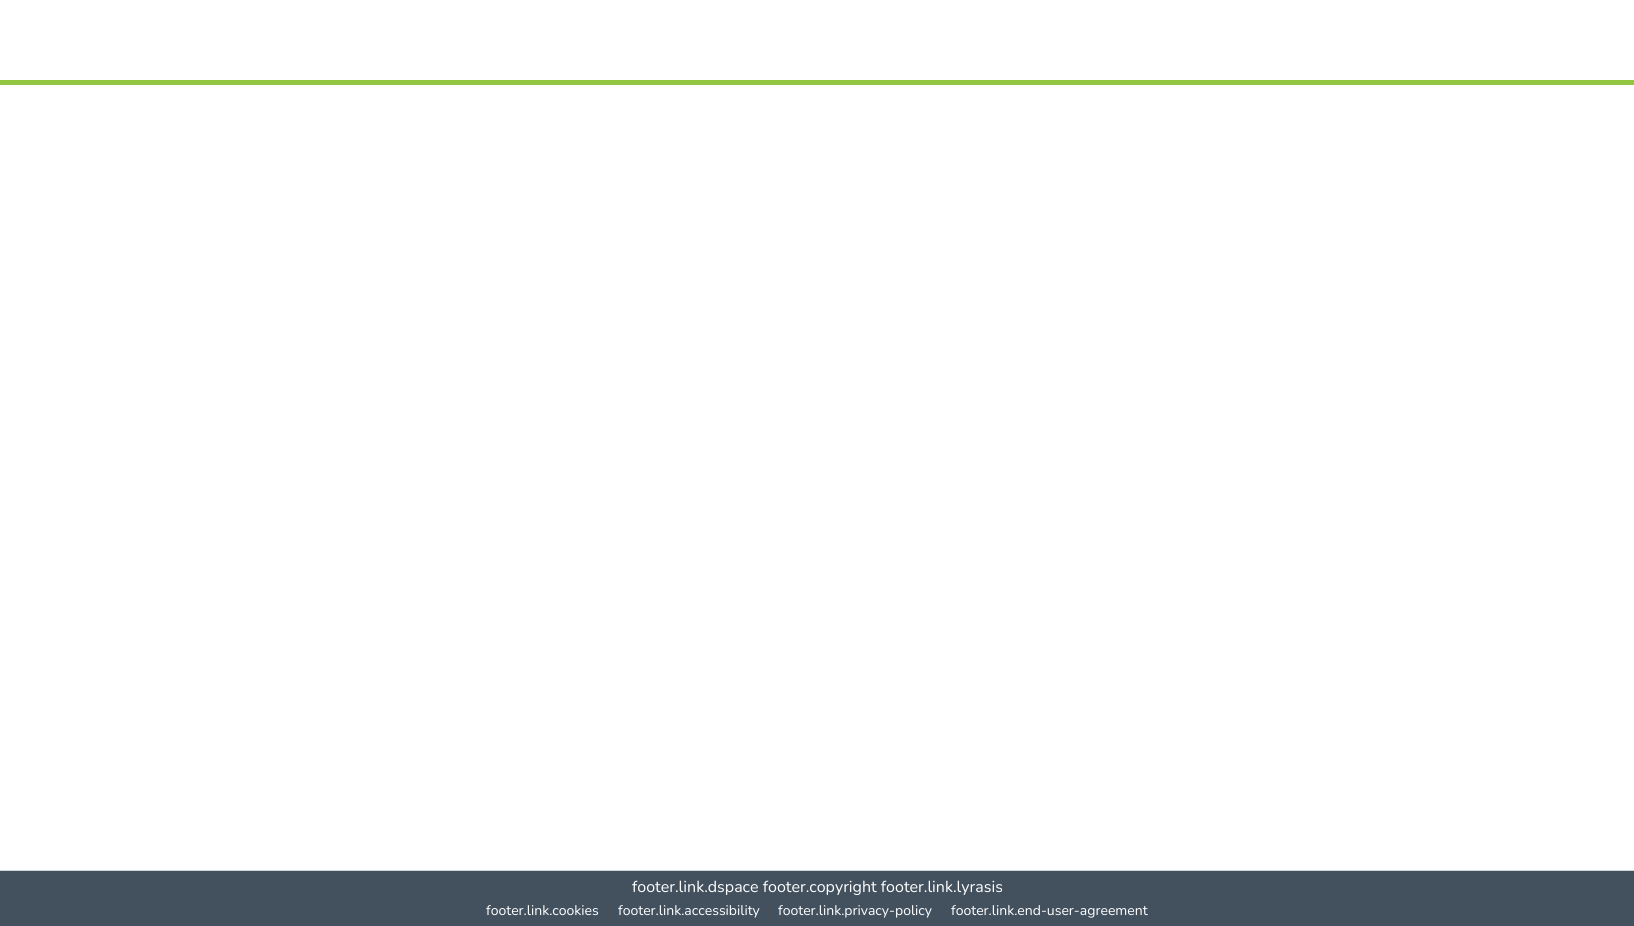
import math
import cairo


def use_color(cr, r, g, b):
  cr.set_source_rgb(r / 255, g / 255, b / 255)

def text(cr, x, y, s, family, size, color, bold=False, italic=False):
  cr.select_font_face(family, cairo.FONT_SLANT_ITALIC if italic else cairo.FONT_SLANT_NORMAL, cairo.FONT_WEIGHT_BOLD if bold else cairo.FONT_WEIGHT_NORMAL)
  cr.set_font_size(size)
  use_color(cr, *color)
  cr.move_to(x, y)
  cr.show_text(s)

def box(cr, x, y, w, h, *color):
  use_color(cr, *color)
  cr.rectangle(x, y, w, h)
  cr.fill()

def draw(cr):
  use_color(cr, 255, 255, 255)
  cr.paint()
  box(cr, 0, 80, 1634, 5, 146, 198, 66)
  box(cr, 0, 871, 1634, 55, 67, 81, 95)
  box(cr, 0, 870, 1634, 1, 206, 212, 218)
  box(cr, 608, 899, 1, 23, 73, 80, 87)
  box(cr, 768, 899, 1, 23, 73, 80, 87)
  box(cr, 941, 899, 1, 23, 73, 80, 87)
  text(cr, 632, 892, "footer.link.dspace footer.copyright footer.link.lyrasis", "Nunito", 16, (255, 255, 255))
  text(cr, 486, 915, "footer.link.cookies", "Nunito", 14, (255, 255, 255))
  text(cr, 618, 915, "footer.link.accessibility", "Nunito", 14, (255, 255, 255))
  text(cr, 778, 915, "footer.link.privacy-policy", "Nunito", 14, (255, 255, 255))
  text(cr, 951, 915, "footer.link.end-user-agreement", "Nunito", 14, (255, 255, 255))


surface = cairo.ImageSurface(cairo.FORMAT_RGB24, 1634, 926)
cr = cairo.Context(surface)
options = cairo.FontOptions()
options.set_hint_metrics(cairo.HINT_METRICS_OFF)
options.set_hint_style(cairo.HINT_STYLE_NONE)
cr.set_font_options(options)
cr.set_miter_limit(4)
draw(cr)
surface.write_to_png("out.png")
